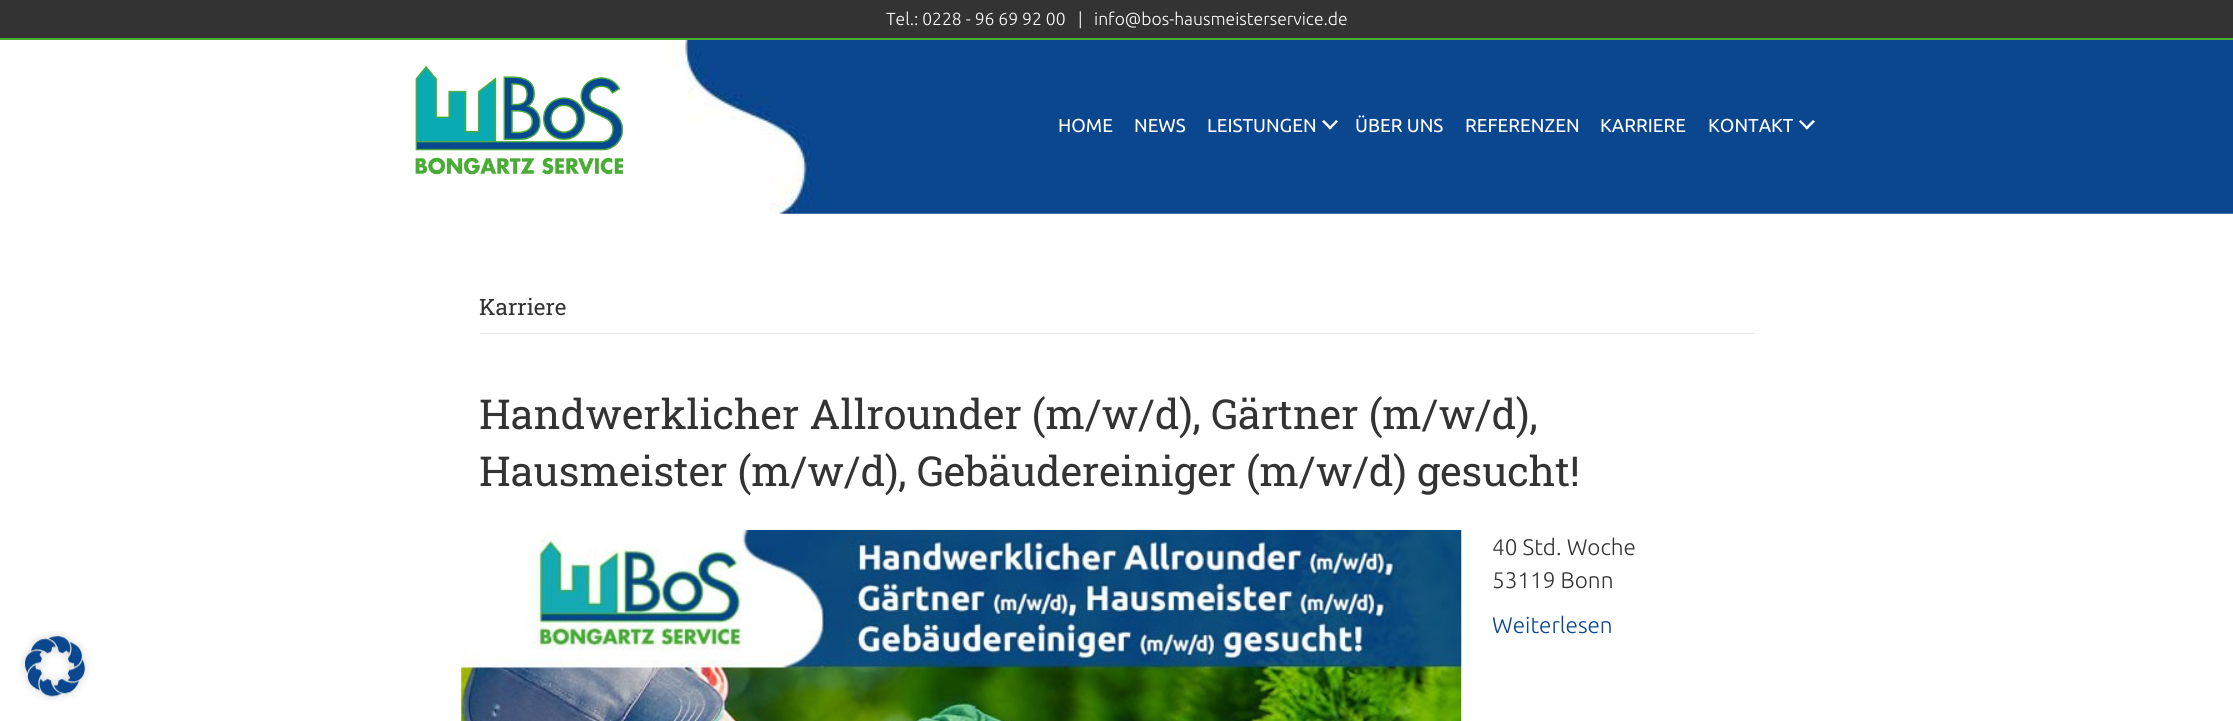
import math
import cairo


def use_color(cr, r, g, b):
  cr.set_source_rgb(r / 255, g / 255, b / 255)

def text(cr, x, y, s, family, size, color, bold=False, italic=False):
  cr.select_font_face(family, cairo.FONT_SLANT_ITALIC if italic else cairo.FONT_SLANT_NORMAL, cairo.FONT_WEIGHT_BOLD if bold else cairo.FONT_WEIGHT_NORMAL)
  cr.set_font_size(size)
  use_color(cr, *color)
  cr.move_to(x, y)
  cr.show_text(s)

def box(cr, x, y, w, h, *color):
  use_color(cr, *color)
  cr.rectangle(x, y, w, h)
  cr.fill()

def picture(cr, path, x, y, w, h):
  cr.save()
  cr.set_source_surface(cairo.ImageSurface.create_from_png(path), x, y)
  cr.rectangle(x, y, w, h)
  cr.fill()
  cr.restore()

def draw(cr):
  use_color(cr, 255, 255, 255)
  cr.paint()
  box(cr, 0, 0, 2233, 38, 51, 51, 51)
  box(cr, 0, 38, 2233, 2, 72, 172, 53)
  picture(cr, "img_01.png", 669, 40, 1564, 174)
  picture(cr, "img_02.png", 415, 66, 208, 109)
  use_color(cr, 255, 255, 255)
  cr.new_path()
  cr.move_to(1336, 120)
  cr.line_to(1338, 121.5)
  cr.line_to(1330, 129.5)
  cr.line_to(1328.5, 128)
  cr.close_path()
  cr.fill()
  cr.new_path()
  cr.move_to(1324, 120)
  cr.line_to(1332, 128)
  cr.line_to(1330, 129.5)
  cr.line_to(1322, 121.5)
  cr.close_path()
  cr.fill()
  cr.new_path()
  cr.move_to(1813, 120)
  cr.line_to(1815, 121.5)
  cr.line_to(1807, 129.5)
  cr.line_to(1805, 128)
  cr.close_path()
  cr.fill()
  cr.new_path()
  cr.move_to(1800.5, 120)
  cr.line_to(1808.5, 128)
  cr.line_to(1807, 129.5)
  cr.line_to(1799, 121.5)
  cr.close_path()
  cr.fill()
  box(cr, 480, 333, 1275, 1, 230, 230, 230)
  picture(cr, "img_03.png", 461, 530, 1001, 191)
  picture(cr, "img_04.png", 20, 631, 70, 70)
  text(cr, 886, 25, "Tel.: 0228 - 96 69 92 00", "Ubuntu Light", 17.5, (255, 255, 255))
  text(cr, 1078, 25, "|", "Ubuntu Light", 17.5, (255, 255, 255))
  text(cr, 1094, 25, "info@bos-hausmeisterservice.de", "Ubuntu Light", 17.5, (255, 255, 255))
  text(cr, 1058, 132, "HOME", "Ubuntu", 18.75, (255, 255, 255))
  text(cr, 1134, 132, "NEWS", "Ubuntu", 18.75, (255, 255, 255))
  text(cr, 1207, 132, "LEISTUNGEN", "Ubuntu", 18.75, (255, 255, 255))
  text(cr, 1355, 132, "ÜBER UNS", "Ubuntu", 18.75, (255, 255, 255))
  text(cr, 1465, 132, "REFERENZEN", "Ubuntu", 18.75, (255, 255, 255))
  text(cr, 1600, 132, "KARRIERE", "Ubuntu", 18.75, (255, 255, 255))
  text(cr, 1708, 132, "KONTAKT", "Ubuntu", 18.75, (255, 255, 255))
  text(cr, 479, 315, "Karriere", "Roboto Slab", 22.5, (51, 51, 51))
  text(cr, 479, 429, "Handwerklicher Allrounder (m/w/d), Gärtner (m/w/d),", "Roboto Slab", 41.25, (51, 51, 51))
  text(cr, 479, 486, "Hausmeister (m/w/d), Gebäudereiniger (m/w/d) gesucht!", "Roboto Slab", 41.25, (51, 51, 51))
  text(cr, 1492, 555, "40 Std. Woche", "Ubuntu Light", 22.5, (51, 51, 51))
  text(cr, 1492, 588, "53119 Bonn", "Ubuntu Light", 22.5, (51, 51, 51))
  text(cr, 1492, 633, "Weiterlesen", "Ubuntu Light", 22.5, (10, 71, 142))


surface = cairo.ImageSurface(cairo.FORMAT_RGB24, 2233, 721)
cr = cairo.Context(surface)
options = cairo.FontOptions()
options.set_hint_metrics(cairo.HINT_METRICS_OFF)
options.set_hint_style(cairo.HINT_STYLE_NONE)
cr.set_font_options(options)
cr.set_miter_limit(4)
draw(cr)
surface.write_to_png("out.png")
